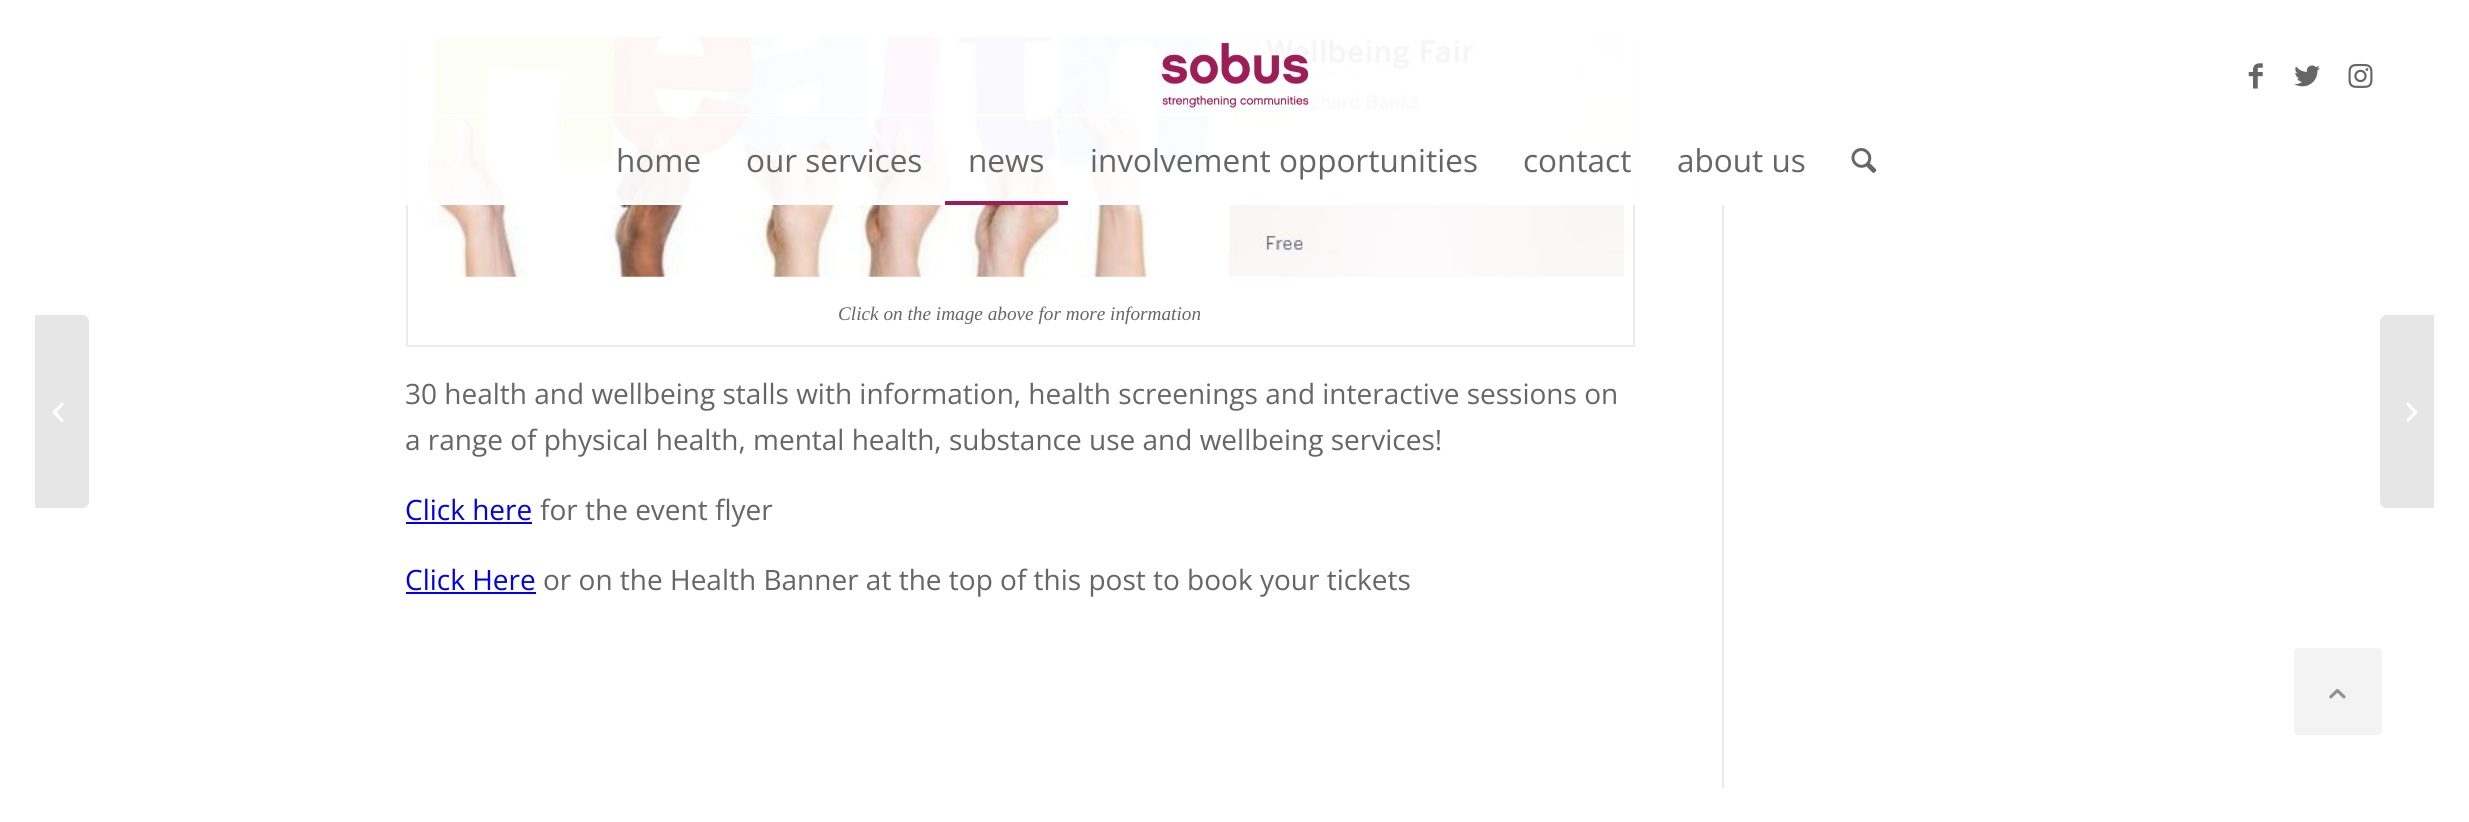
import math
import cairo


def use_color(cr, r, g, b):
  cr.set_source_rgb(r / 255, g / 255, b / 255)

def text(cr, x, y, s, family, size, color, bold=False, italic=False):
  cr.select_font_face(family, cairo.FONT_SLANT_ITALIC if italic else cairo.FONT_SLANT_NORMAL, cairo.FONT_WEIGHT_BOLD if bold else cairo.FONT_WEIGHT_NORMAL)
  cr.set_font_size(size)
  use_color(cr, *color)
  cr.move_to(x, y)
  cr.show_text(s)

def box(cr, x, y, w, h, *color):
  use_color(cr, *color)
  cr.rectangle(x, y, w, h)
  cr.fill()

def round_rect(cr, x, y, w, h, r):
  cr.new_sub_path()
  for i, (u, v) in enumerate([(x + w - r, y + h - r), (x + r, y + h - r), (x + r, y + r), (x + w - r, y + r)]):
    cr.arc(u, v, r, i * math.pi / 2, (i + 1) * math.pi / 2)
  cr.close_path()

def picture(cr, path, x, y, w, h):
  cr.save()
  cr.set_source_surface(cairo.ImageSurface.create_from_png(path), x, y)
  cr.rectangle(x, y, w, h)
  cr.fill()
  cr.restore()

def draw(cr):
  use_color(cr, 255, 255, 255)
  cr.paint()
  box(cr, 1722, 37, 2, 751, 235, 235, 235)
  cr.rectangle(407, -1, 1227, 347)
  cr.stroke()
  picture(cr, "img_07.png", 416, 37, 1208, 240)
  cr.set_source_rgba(1, 1, 1, 0.95)
  cr.rectangle(406, 37, 1318, 166)
  cr.fill()
  box(cr, 406, 0, 1229, 37, 255, 255, 255)
  box(cr, 406, 203, 1318, 2, 255, 255, 255)
  picture(cr, "img_01.png", 1161, 43, 148, 65)
  picture(cr, "img_02.png", 2248, 63, 15, 26)
  picture(cr, "img_03.png", 2294, 65, 26, 22)
  picture(cr, "img_04.png", 2348, 63, 25, 25)
  box(cr, 432, 114, 777, 2, 255, 255, 255)
  box(cr, 945, 201, 123, 4, 156, 29, 86)
  picture(cr, "img_05.png", 1851, 148, 26, 25)
  use_color(cr, 230, 230, 230)
  cr.new_path()
  cr.move_to(35, 315)
  cr.line_to(82, 315)
  cr.curve_to(86, 315, 89, 318, 89, 322)
  cr.line_to(89, 501)
  cr.curve_to(89, 505, 86, 508, 82, 508)
  cr.line_to(35, 508)
  cr.close_path()
  cr.fill()
  picture(cr, "img_06.png", 52, 402, 12, 20)
  box(cr, 406, 522, 126, 2, 0, 0, 238)
  box(cr, 406, 592, 130, 2, 0, 0, 238)
  use_color(cr, 230, 230, 230)
  cr.new_path()
  cr.move_to(2387, 315)
  cr.line_to(2434, 315)
  cr.line_to(2434, 508)
  cr.line_to(2387, 508)
  cr.curve_to(2383, 508, 2380, 505, 2380, 501)
  cr.line_to(2380, 322)
  cr.curve_to(2380, 318, 2383, 315, 2387, 315)
  cr.close_path()
  cr.fill()
  picture(cr, "img_08.png", 2406, 402, 12, 20)
  use_color(cr, 243, 243, 243)
  round_rect(cr, 2295, 649, 86, 85, 3)
  cr.fill_preserve()
  cr.stroke()
  picture(cr, "img_09.png", 2329, 689, 17, 10)
  text(cr, 616, 172, "home", "Open Sans", 31.5, (102, 102, 102))
  text(cr, 746, 172, "our services", "Open Sans", 31.5, (102, 102, 102))
  text(cr, 968, 172, "news", "Open Sans", 31.5, (102, 102, 102))
  text(cr, 1090, 172, "involvement opportunities", "Open Sans", 31.5, (102, 102, 102))
  text(cr, 1523, 172, "contact", "Open Sans", 31.5, (102, 102, 102))
  text(cr, 1677, 172, "about us", "Open Sans", 31.5, (102, 102, 102))
  text(cr, 838, 320, "Click on the image above for more information", "Liberation Serif", 19.25, (102, 102, 102), italic=True)
  text(cr, 405, 404, "30 health and wellbeing stalls with information, health screenings and interactive sessions on", "Open Sans", 28, (102, 102, 102))
  text(cr, 405, 450, "a range of physical health, mental health, substance use and wellbeing services!", "Open Sans", 28, (102, 102, 102))
  text(cr, 405, 520, "Click here", "Open Sans", 28, (0, 0, 238))
  text(cr, 540, 520, "for the event flyer", "Open Sans", 28, (102, 102, 102))
  text(cr, 405, 590, "Click Here", "Open Sans", 28, (0, 0, 238))
  text(cr, 543, 590, "or on the Health Banner at the top of this post to book your tickets", "Open Sans", 28, (102, 102, 102))


surface = cairo.ImageSurface(cairo.FORMAT_RGB24, 2469, 822)
cr = cairo.Context(surface)
options = cairo.FontOptions()
options.set_hint_metrics(cairo.HINT_METRICS_OFF)
options.set_hint_style(cairo.HINT_STYLE_NONE)
cr.set_font_options(options)
cr.set_miter_limit(4)
draw(cr)
surface.write_to_png("out.png")
